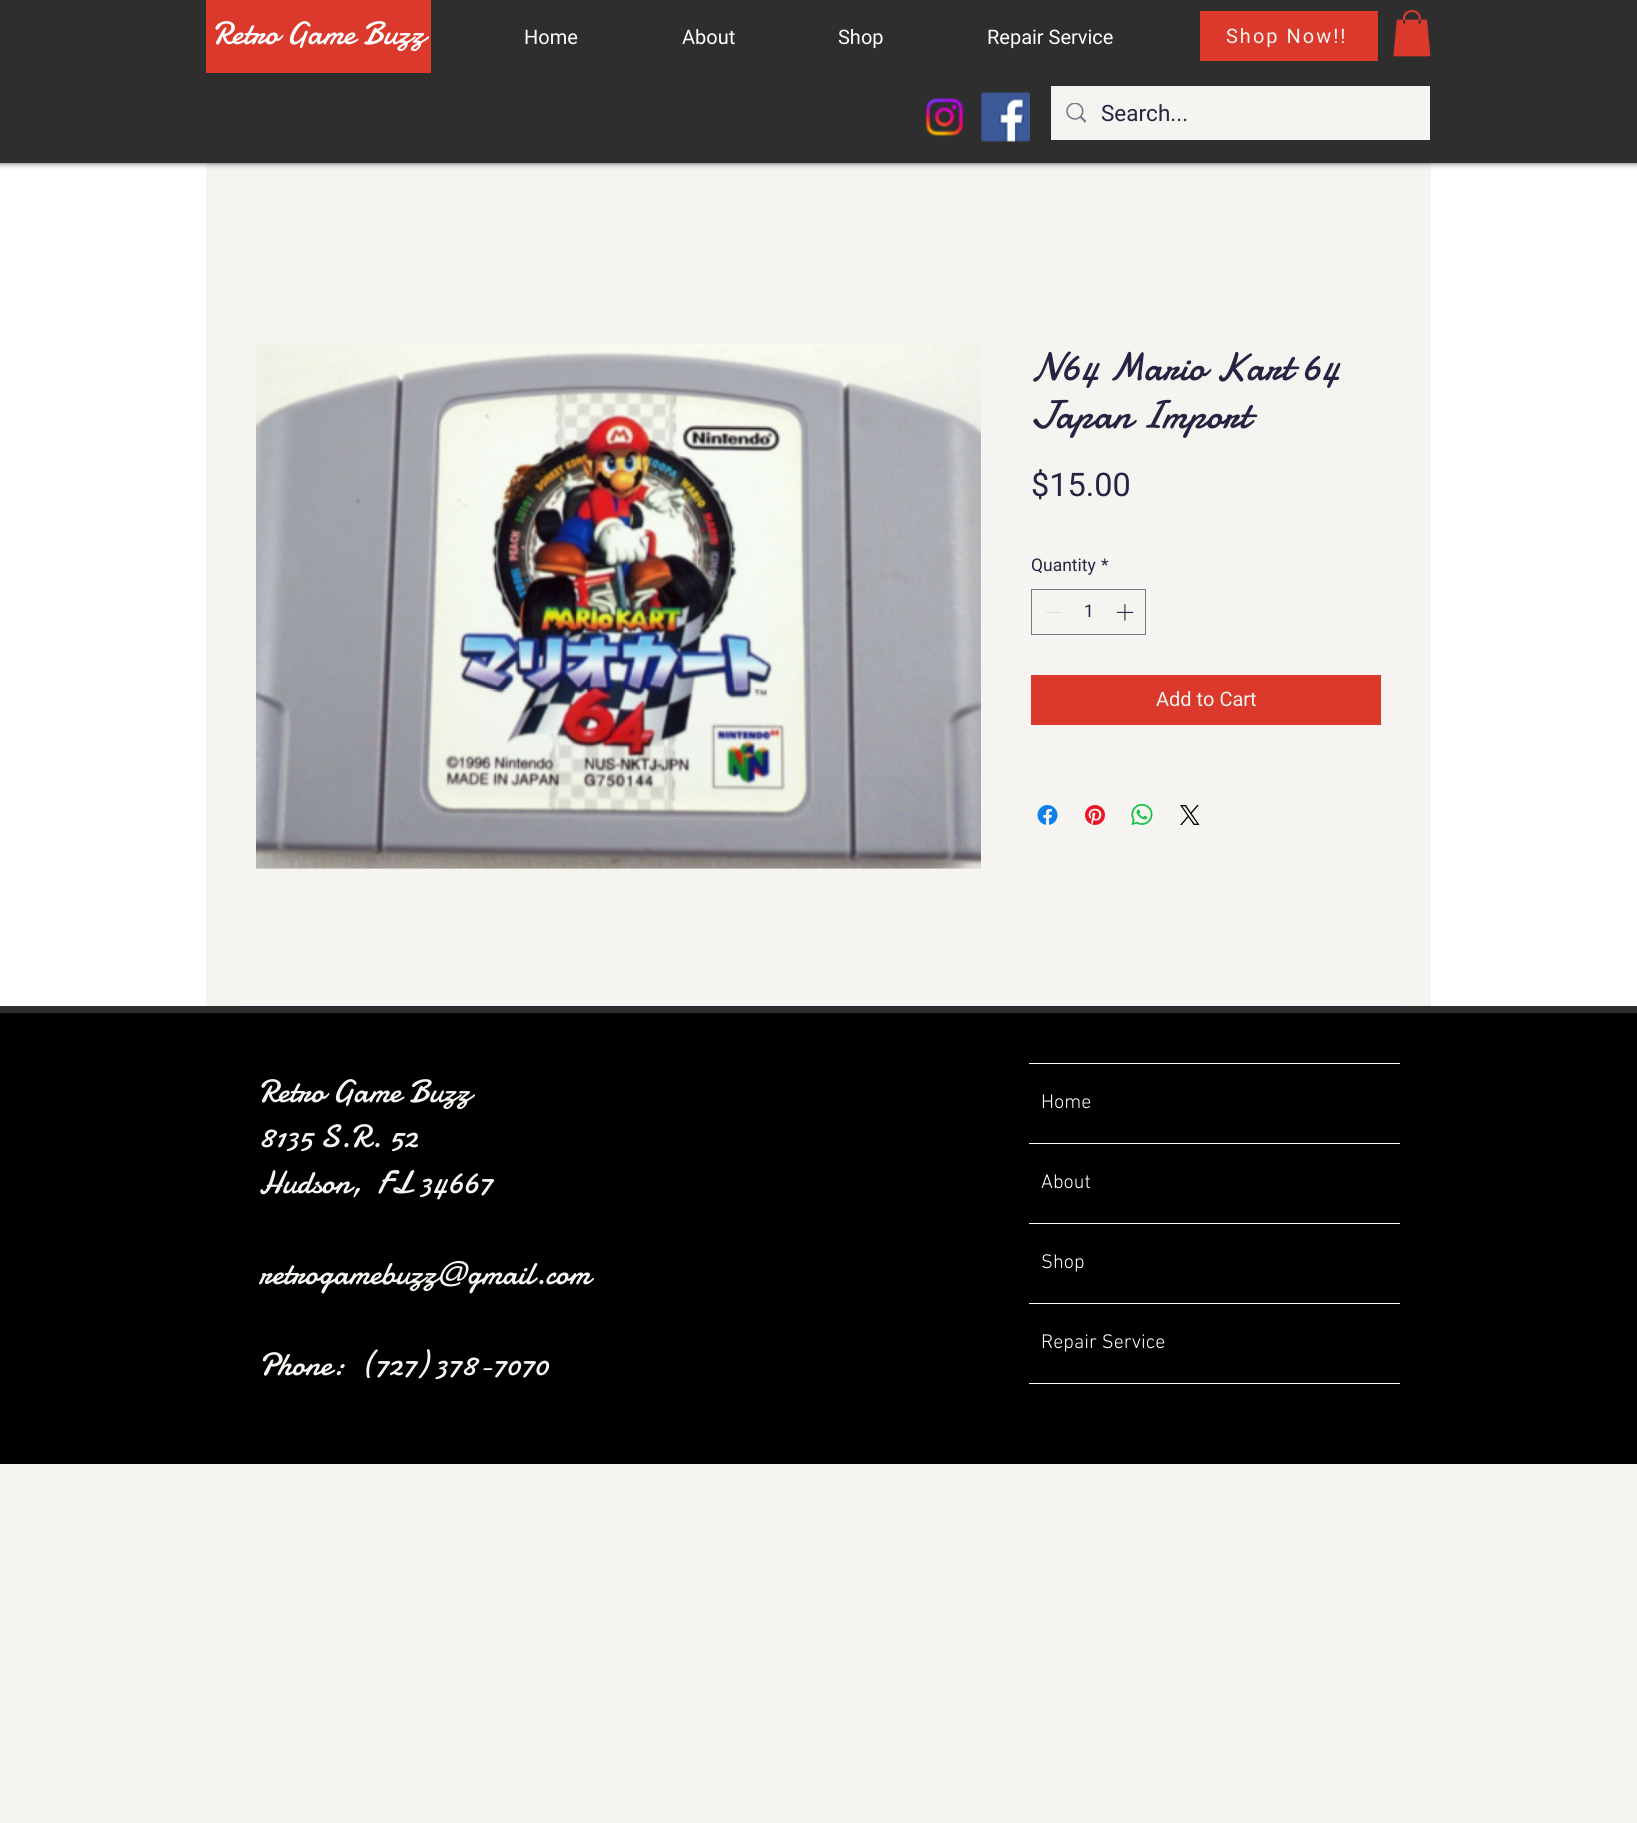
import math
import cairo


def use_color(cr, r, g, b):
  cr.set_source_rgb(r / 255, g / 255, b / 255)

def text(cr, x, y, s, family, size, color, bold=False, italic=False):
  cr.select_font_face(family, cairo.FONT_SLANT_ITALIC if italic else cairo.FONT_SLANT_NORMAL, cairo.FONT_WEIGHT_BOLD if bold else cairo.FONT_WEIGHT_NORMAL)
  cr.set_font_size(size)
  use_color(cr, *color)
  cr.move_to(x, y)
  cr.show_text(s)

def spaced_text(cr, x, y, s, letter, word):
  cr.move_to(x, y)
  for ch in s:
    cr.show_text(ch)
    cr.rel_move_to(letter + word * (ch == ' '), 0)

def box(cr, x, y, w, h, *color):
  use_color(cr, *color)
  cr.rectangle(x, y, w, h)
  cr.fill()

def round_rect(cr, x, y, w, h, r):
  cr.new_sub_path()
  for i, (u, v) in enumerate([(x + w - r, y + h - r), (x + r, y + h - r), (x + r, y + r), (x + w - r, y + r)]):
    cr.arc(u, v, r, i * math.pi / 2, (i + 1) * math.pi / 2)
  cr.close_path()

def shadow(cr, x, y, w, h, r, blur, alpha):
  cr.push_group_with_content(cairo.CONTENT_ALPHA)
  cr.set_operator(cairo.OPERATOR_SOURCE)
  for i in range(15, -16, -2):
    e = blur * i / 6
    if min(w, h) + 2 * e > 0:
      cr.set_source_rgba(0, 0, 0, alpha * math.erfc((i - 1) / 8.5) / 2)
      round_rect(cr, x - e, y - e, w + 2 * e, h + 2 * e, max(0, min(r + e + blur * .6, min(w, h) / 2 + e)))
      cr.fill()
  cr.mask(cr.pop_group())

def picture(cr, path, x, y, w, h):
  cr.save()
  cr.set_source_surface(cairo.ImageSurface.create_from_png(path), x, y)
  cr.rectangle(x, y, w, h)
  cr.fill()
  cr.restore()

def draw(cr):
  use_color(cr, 246, 244, 240)
  cr.paint()
  box(cr, 0, 163, 1637, 843, 255, 255, 255)
  box(cr, 206, 163, 1225, 843, 246, 244, 240)
  use_color(cr, 0, 0, 0)
  shadow(cr, 0, 0, 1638, 163, 0, 3, 0.7)
  box(cr, 0, 0, 1637, 163, 47, 46, 46)
  box(cr, 206, 0, 225, 73, 218, 57, 43)
  box(cr, 1200, 11, 178, 50, 218, 57, 43)
  picture(cr, "img_01.png", 1393, 10, 38, 47)
  picture(cr, "img_02.png", 925, 97, 39, 40)
  picture(cr, "img_03.png", 981, 92, 49, 50)
  cr.rectangle(1050.5, 85.5, 380, 55)
  use_color(cr, 42, 40, 59)
  cr.set_line_width(1)
  cr.stroke()
  box(cr, 1051, 86, 379, 54, 246, 244, 240)
  picture(cr, "img_04.png", 1066, 103, 20, 20)
  picture(cr, "img_05.png", 256, 344, 725, 525)
  cr.rectangle(1031.5, 589.5, 114, 45)
  use_color(cr, 122, 119, 136)
  cr.stroke()
  box(cr, 1046, 612, 16, 1, 223, 222, 220)
  picture(cr, "img_06.png", 1116, 604, 18, 17)
  box(cr, 1031, 675, 350, 50, 218, 57, 43)
  picture(cr, "img_07.png", 1037, 805, 21, 20)
  picture(cr, "img_08.png", 1085, 805, 20, 20)
  picture(cr, "img_09.png", 1131, 803, 22, 23)
  picture(cr, "img_10.png", 1180, 805, 20, 20)
  box(cr, 0, 1006, 1637, 7, 47, 46, 46)
  box(cr, 238, 1006, 1162, 1, 39, 36, 67)
  box(cr, 0, 1013, 1637, 451, 0, 0, 0)
  box(cr, 1029, 1063, 371, 1, 255, 255, 255)
  box(cr, 1029, 1383, 371, 1, 255, 255, 255)
  box(cr, 1029, 1143, 371, 1, 255, 255, 255)
  box(cr, 1029, 1223, 371, 1, 255, 255, 255)
  box(cr, 1029, 1303, 371, 1, 255, 255, 255)
  text(cr, 213, 44, "Retro Game Buzz", "Damion", 32.5, (255, 255, 255))
  text(cr, 524, 44, "Home", "Roboto", 20, (255, 255, 255))
  text(cr, 682, 44, "About", "Roboto", 20, (255, 255, 255))
  text(cr, 838, 44, "Shop", "Roboto", 20, (255, 255, 255))
  text(cr, 987, 44, "Repair Service", "Roboto", 20, (255, 255, 255))
  use_color(cr, 246, 244, 240)
  spaced_text(cr, 1226, 43, "Shop Now!!", 2, 0)
  text(cr, 1101, 121, "Search...", "Roboto", 22.5, (39, 36, 67))
  text(cr, 1031, 380, "N64 Mario Kart 64", "Damion", 40, (39, 36, 67))
  text(cr, 1031, 428, "Japan Import", "Damion", 40, (39, 36, 67))
  text(cr, 1031, 496, "$15.00", "Roboto", 32.5, (39, 36, 67))
  text(cr, 1031, 571, "Quantity", "Roboto", 17.5, (39, 36, 67))
  text(cr, 1101, 571, "*", "Roboto", 17.5, (39, 36, 67))
  text(cr, 1084, 617, "1", "Roboto", 17.5, (39, 36, 67))
  text(cr, 1156, 706, "Add to Cart", "Roboto", 20, (246, 244, 240))
  text(cr, 259, 1102, "Retro Game Buzz", "Damion", 32.5, (246, 244, 240))
  text(cr, 259, 1147, "8135 S.R. 52", "Damion", 32.5, (246, 244, 240))
  text(cr, 259, 1193, "Hudson,  FL 34667", "Damion", 32.5, (246, 244, 240))
  text(cr, 259, 1284, "retrogamebuzz@gmail.com", "Damion", 32.5, (246, 244, 240))
  text(cr, 259, 1375, "Phone:", "Damion", 32.5, (246, 244, 240))
  text(cr, 360, 1375, "(727) 378-7070", "Damion", 32.5, (246, 244, 240))
  text(cr, 1041, 1108, "Home", "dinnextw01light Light", 20, (255, 255, 255))
  text(cr, 1041, 1188, "About", "dinnextw01light Light", 20, (255, 255, 255))
  text(cr, 1041, 1268, "Shop", "dinnextw01light Light", 20, (255, 255, 255))
  text(cr, 1041, 1348, "Repair Service", "dinnextw01light Light", 20, (255, 255, 255))


surface = cairo.ImageSurface(cairo.FORMAT_RGB24, 1637, 1823)
cr = cairo.Context(surface)
options = cairo.FontOptions()
options.set_hint_metrics(cairo.HINT_METRICS_OFF)
options.set_hint_style(cairo.HINT_STYLE_NONE)
cr.set_font_options(options)
cr.set_miter_limit(4)
draw(cr)
surface.write_to_png("out.png")
